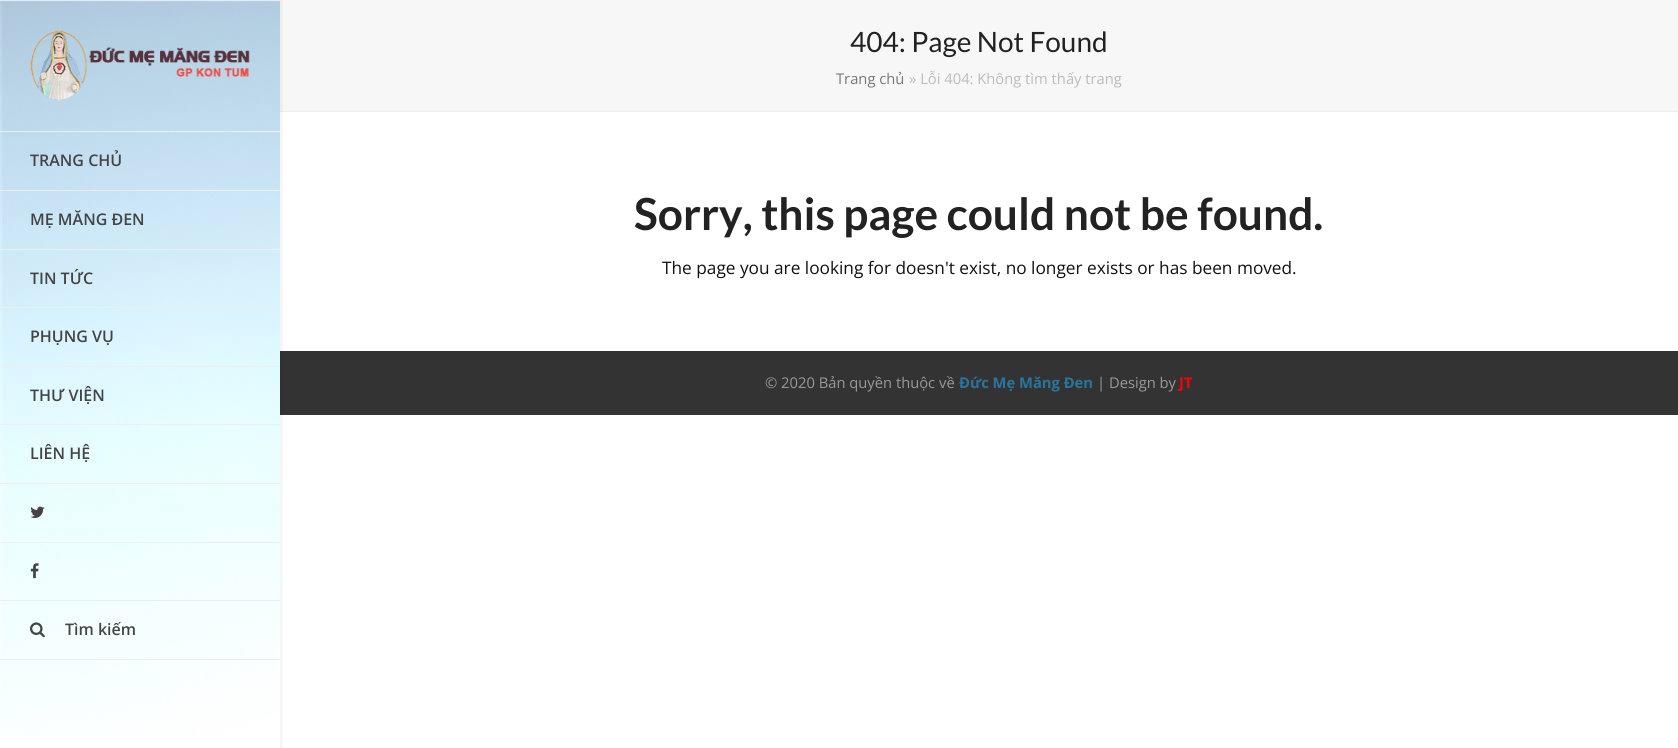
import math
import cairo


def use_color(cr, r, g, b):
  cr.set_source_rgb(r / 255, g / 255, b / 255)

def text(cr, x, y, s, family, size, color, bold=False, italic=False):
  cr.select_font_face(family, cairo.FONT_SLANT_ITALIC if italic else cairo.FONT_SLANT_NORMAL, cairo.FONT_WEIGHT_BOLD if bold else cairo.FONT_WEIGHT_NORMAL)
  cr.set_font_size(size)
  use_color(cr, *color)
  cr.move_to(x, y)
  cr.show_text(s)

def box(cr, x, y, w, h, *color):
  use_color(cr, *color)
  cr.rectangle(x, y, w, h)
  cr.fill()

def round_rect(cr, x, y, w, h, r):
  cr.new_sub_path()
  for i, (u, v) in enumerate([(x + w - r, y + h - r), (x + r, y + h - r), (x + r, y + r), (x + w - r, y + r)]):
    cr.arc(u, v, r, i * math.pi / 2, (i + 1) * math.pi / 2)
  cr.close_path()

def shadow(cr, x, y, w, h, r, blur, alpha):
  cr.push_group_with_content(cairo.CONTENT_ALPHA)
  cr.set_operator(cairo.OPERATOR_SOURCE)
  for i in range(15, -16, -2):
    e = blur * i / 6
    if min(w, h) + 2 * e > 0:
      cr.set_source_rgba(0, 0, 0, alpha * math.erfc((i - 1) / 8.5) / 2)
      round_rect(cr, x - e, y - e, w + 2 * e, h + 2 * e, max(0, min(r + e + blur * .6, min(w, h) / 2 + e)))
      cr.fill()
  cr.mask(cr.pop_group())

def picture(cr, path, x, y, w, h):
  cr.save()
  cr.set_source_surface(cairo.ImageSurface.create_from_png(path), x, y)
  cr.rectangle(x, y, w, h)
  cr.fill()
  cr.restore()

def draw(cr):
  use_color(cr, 255, 255, 255)
  cr.paint()
  box(cr, 280, 0, 1398, 111, 247, 247, 247)
  box(cr, 280, 111, 1398, 1, 238, 238, 238)
  box(cr, 280, 351, 1398, 64, 51, 51, 51)
  cr.save()
  cr.rectangle(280, 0, 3, 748)
  cr.clip()
  use_color(cr, 0, 0, 0)
  shadow(cr, 0, 0, 280, 748, 0, 3.5, 0.1)
  cr.restore()
  picture(cr, "img_01.png", 0, 0, 280, 736)
  picture(cr, "img_02.png", 30, 30, 220, 71)
  box(cr, 0, 131, 280, 1, 238, 238, 238)
  box(cr, 0, 190, 280, 1, 238, 238, 238)
  box(cr, 0, 249, 280, 1, 238, 238, 238)
  box(cr, 0, 307, 280, 1, 238, 238, 238)
  box(cr, 0, 366, 280, 1, 238, 238, 238)
  box(cr, 0, 424, 280, 1, 238, 238, 238)
  box(cr, 0, 483, 280, 1, 238, 238, 238)
  box(cr, 0, 542, 280, 1, 238, 238, 238)
  picture(cr, "img_03.png", 30, 506, 15, 12)
  box(cr, 0, 600, 280, 1, 238, 238, 238)
  picture(cr, "img_04.png", 30, 563, 9, 16)
  box(cr, 0, 659, 280, 1, 238, 238, 238)
  picture(cr, "img_05.png", 30, 622, 15, 16)
  text(cr, 30, 166, "TRANG CHỦ", "Open Sans SemiBold", 16, (68, 68, 68))
  text(cr, 30, 225, "MẸ MĂNG ĐEN", "Open Sans SemiBold", 16, (68, 68, 68))
  text(cr, 30, 284, "TIN TỨC", "Open Sans SemiBold", 16, (68, 68, 68))
  text(cr, 30, 342, "PHỤNG VỤ", "Open Sans SemiBold", 16, (68, 68, 68))
  text(cr, 30, 401, "THƯ VIỆN", "Open Sans SemiBold", 16, (68, 68, 68))
  text(cr, 30, 459, "LIÊN HỆ", "Open Sans SemiBold", 16, (68, 68, 68))
  text(cr, 65, 635, "Tìm kiếm", "Open Sans SemiBold", 16, (68, 68, 68))
  text(cr, 850, 52, "404: Page Not Found", "Lato", 28, (34, 34, 34))
  text(cr, 836, 84, "Trang chủ", "Open Sans", 14.75, (119, 119, 119))
  text(cr, 909, 84, "» Lỗi 404: Không tìm thấy trang", "Open Sans", 14.75, (188, 188, 188))
  text(cr, 634, 230, "Sorry, this page could not be found.", "Lato", 44.25, (34, 34, 34), bold=True)
  text(cr, 662, 274, "The page you are looking for doesn't exist, no longer exists or has been moved.", "Open Sans", 17.25, (17, 17, 17))
  text(cr, 765, 388, "© 2020 Bản quyền thuộc về", "Open Sans", 14.75, (153, 153, 153))
  text(cr, 959, 388, "Đức Mẹ Măng Đen", "Open Sans", 14.75, (40, 118, 157), bold=True)
  text(cr, 1097, 388, "| Design by", "Open Sans", 14.75, (153, 153, 153))
  text(cr, 1179, 388, "JT", "Open Sans", 14.75, (255, 0, 0), bold=True)


surface = cairo.ImageSurface(cairo.FORMAT_RGB24, 1678, 748)
cr = cairo.Context(surface)
options = cairo.FontOptions()
options.set_hint_metrics(cairo.HINT_METRICS_OFF)
options.set_hint_style(cairo.HINT_STYLE_NONE)
cr.set_font_options(options)
cr.set_miter_limit(4)
draw(cr)
surface.write_to_png("out.png")
